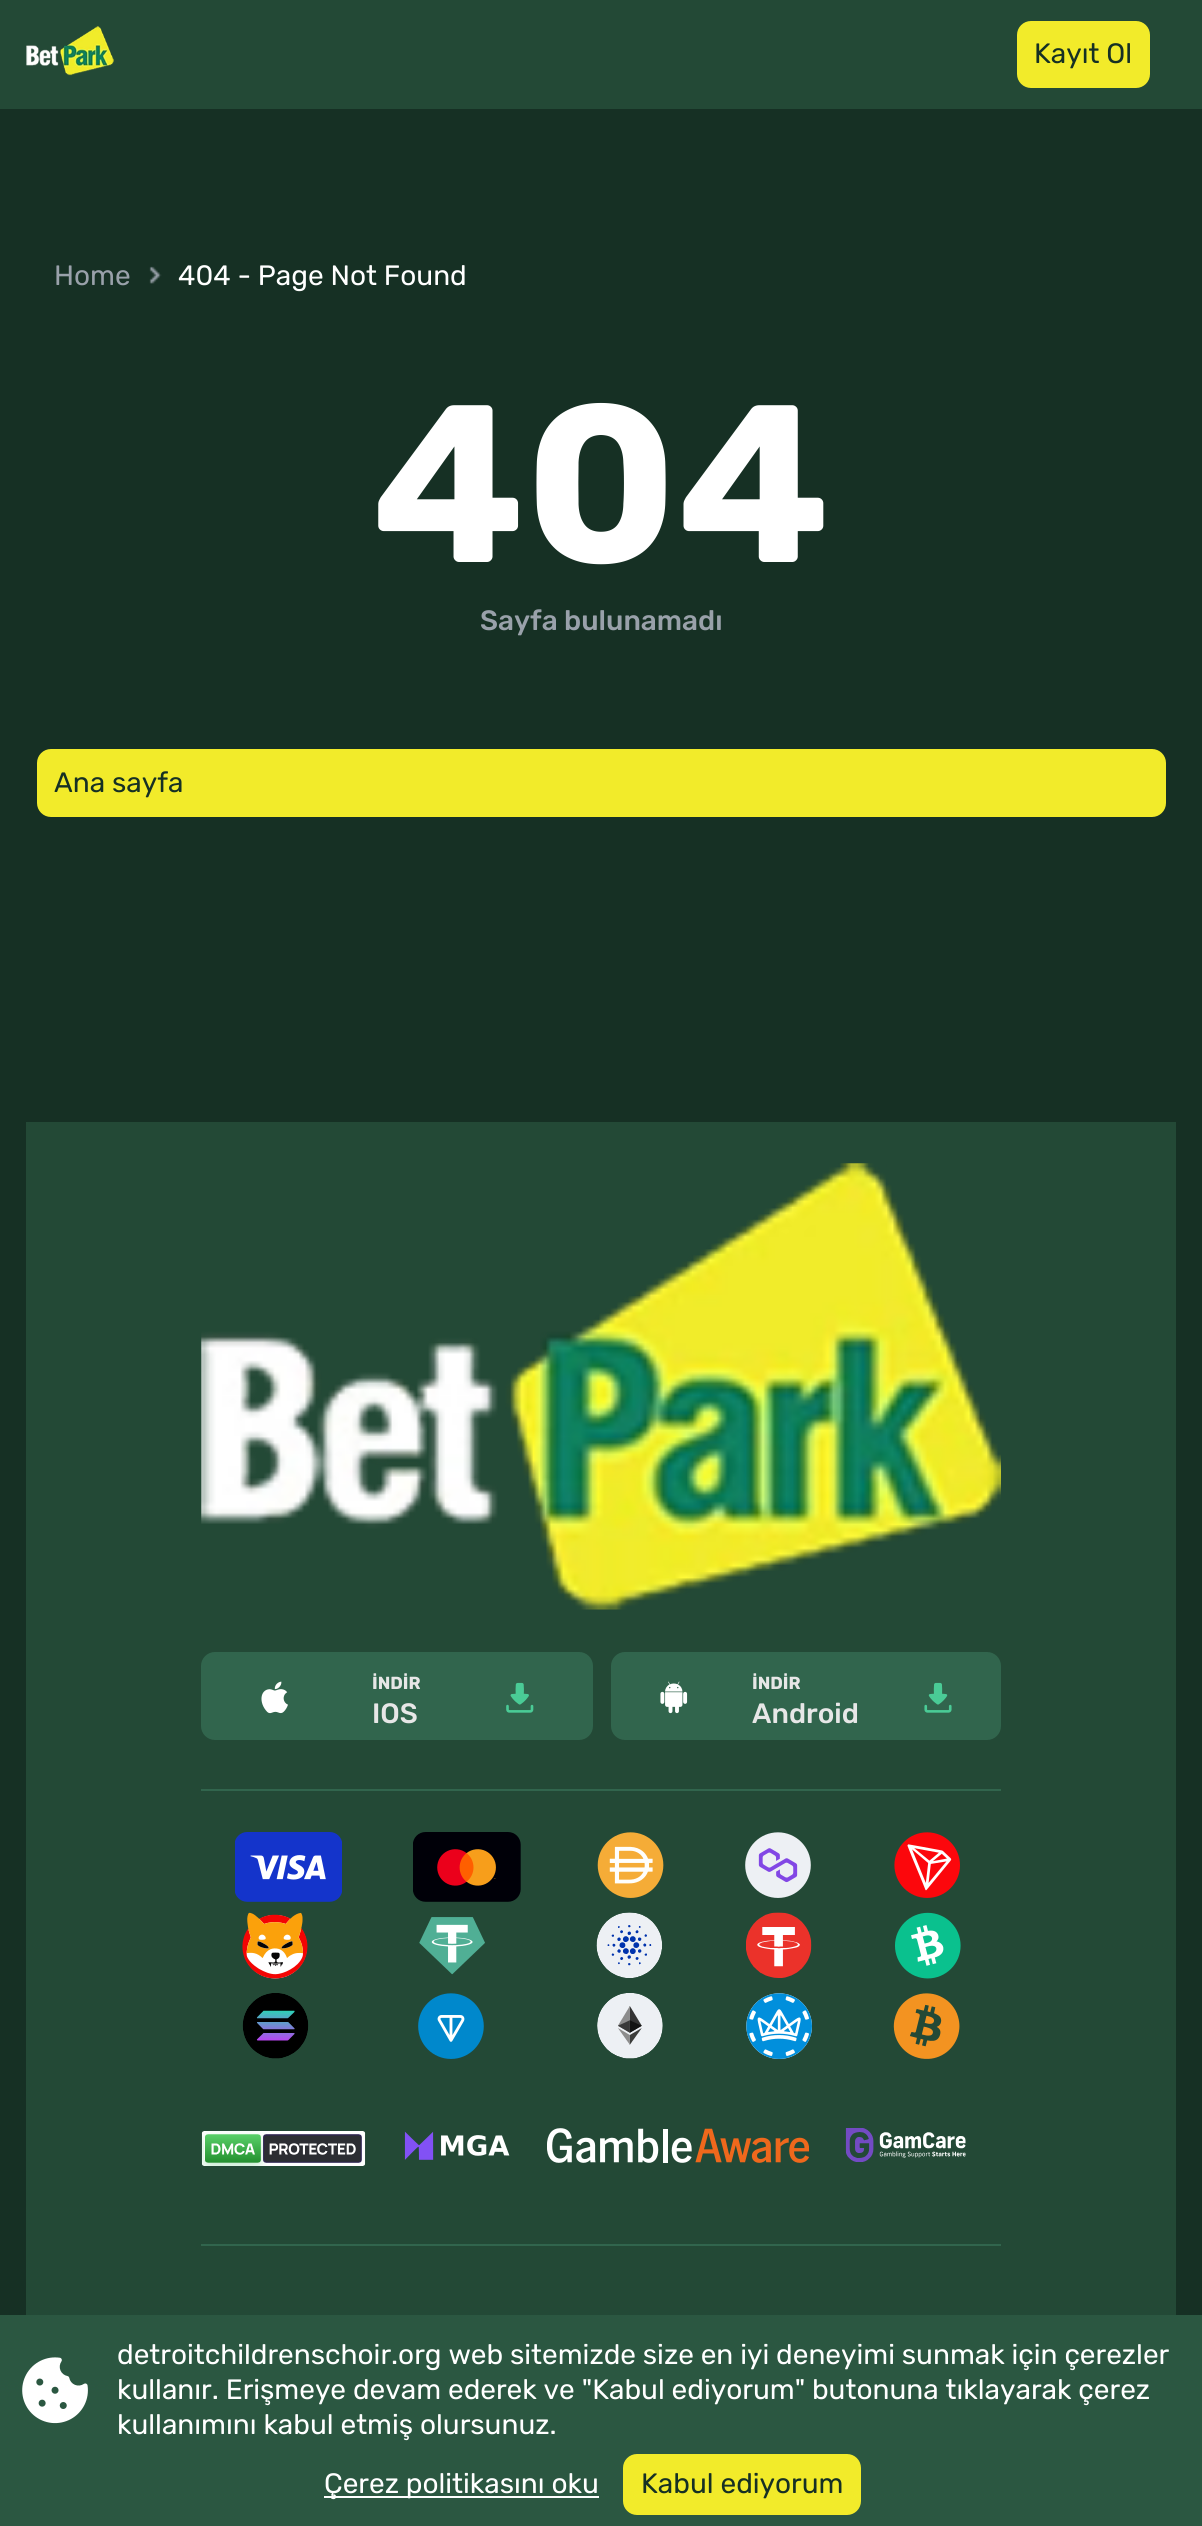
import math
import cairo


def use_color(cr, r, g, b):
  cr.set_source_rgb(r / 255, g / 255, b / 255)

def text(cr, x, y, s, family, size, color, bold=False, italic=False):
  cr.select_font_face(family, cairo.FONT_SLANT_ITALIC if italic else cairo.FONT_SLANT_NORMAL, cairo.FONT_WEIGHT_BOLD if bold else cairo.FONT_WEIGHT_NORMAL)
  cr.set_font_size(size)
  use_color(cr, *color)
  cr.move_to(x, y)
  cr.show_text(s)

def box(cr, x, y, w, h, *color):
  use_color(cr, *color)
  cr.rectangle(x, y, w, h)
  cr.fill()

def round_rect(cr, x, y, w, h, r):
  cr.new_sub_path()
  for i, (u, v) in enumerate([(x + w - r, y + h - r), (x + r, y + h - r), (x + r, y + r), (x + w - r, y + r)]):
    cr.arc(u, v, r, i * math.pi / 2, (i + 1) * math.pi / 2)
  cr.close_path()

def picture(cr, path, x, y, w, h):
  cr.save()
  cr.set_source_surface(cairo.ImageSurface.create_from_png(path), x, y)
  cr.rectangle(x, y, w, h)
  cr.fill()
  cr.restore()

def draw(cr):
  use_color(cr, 22, 48, 36)
  cr.paint()
  box(cr, 0, 0, 1202, 109, 35, 73, 54)
  picture(cr, "img_01.png", 26, 26, 88, 50)
  use_color(cr, 242, 235, 42)
  round_rect(cr, 1017, 21, 133, 67, 14)
  cr.fill()
  picture(cr, "img_02.png", 149, 266, 13, 18)
  round_rect(cr, 37, 749, 1129, 68, 14)
  cr.fill()
  box(cr, 26, 1122, 1150, 1193, 35, 73, 54)
  box(cr, 201, 1789, 800, 2, 49, 101, 77)
  picture(cr, "img_03.png", 201, 1163, 800, 447)
  round_rect(cr, 201, 1652, 392, 88, 14)
  cr.fill()
  picture(cr, "img_04.png", 261, 1681, 27, 33)
  picture(cr, "img_05.png", 506, 1682, 28, 31)
  round_rect(cr, 611, 1652, 390, 88, 14)
  cr.fill()
  picture(cr, "img_06.png", 660, 1681, 28, 33)
  picture(cr, "img_07.png", 924, 1682, 28, 31)
  picture(cr, "img_08.png", 235, 1832, 107, 70)
  picture(cr, "img_09.png", 413, 1832, 108, 70)
  picture(cr, "img_10.png", 597, 1832, 67, 66)
  picture(cr, "img_11.png", 745, 1832, 66, 66)
  picture(cr, "img_12.png", 894, 1832, 66, 66)
  picture(cr, "img_13.png", 242, 1912, 66, 67)
  picture(cr, "img_14.png", 419, 1917, 66, 58)
  picture(cr, "img_15.png", 596, 1912, 67, 66)
  picture(cr, "img_16.png", 746, 1912, 66, 66)
  picture(cr, "img_17.png", 895, 1912, 66, 67)
  picture(cr, "img_18.png", 242, 1993, 67, 66)
  picture(cr, "img_19.png", 418, 1993, 66, 66)
  picture(cr, "img_20.png", 597, 1993, 66, 66)
  picture(cr, "img_21.png", 746, 1993, 66, 66)
  picture(cr, "img_22.png", 893, 1993, 67, 66)
  picture(cr, "img_23.png", 201, 2131, 165, 35)
  picture(cr, "img_24.png", 404, 2131, 106, 29)
  picture(cr, "img_25.png", 547, 2128, 262, 35)
  picture(cr, "img_26.png", 845, 2128, 121, 34)
  box(cr, 201, 2244, 800, 2, 49, 101, 77)
  box(cr, 0, 2315, 1202, 211, 43, 87, 65)
  picture(cr, "img_27.png", 22, 2357, 66, 67)
  box(cr, 324, 2496, 275, 2, 255, 255, 255)
  use_color(cr, 242, 235, 42)
  round_rect(cr, 623, 2454, 238, 61, 14)
  cr.fill()
  text(cr, 1034, 63, "Kayıt Ol", "Rubik", 28, (22, 48, 36))
  text(cr, 54, 285, "Home", "Rubik", 28, (153, 161, 170))
  text(cr, 178, 285, "404 - Page Not Found", "Rubik", 28, (255, 255, 255))
  text(cr, 372, 562, "404", "Rubik", 224, (255, 255, 255), bold=True)
  text(cr, 480, 630, "Sayfa bulunamadı", "Rubik Medium", 28, (153, 161, 170))
  text(cr, 54, 792, "Ana sayfa", "Rubik", 28, (22, 48, 36))
  text(cr, 372, 1689, "İNDİR", "Rubik", 17.5, (231, 231, 231), bold=True)
  text(cr, 372, 1723, "IOS", "Rubik Medium", 28, (231, 231, 231))
  text(cr, 752, 1689, "İNDİR", "Rubik", 17.5, (231, 231, 231), bold=True)
  text(cr, 752, 1723, "Android", "Rubik Medium", 28, (231, 231, 231))
  text(cr, 117, 2364, "detroitchildrenschoir.org web sitemizde size en iyi deneyimi sunmak için çerezler", "Rubik", 28, (255, 255, 255))
  text(cr, 117, 2399, "kullanır. Erişmeye devam ederek ve \"Kabul ediyorum\" butonuna tıklayarak çerez", "Rubik", 28, (255, 255, 255))
  text(cr, 117, 2434, "kullanımını kabul etmiş olursunuz.", "Rubik", 28, (255, 255, 255))
  text(cr, 324, 2493, "Çerez politikasını oku", "Rubik", 28, (255, 255, 255))
  text(cr, 641, 2493, "Kabul ediyorum", "Rubik", 28, (22, 48, 36))


surface = cairo.ImageSurface(cairo.FORMAT_RGB24, 1202, 2526)
cr = cairo.Context(surface)
options = cairo.FontOptions()
options.set_hint_metrics(cairo.HINT_METRICS_OFF)
options.set_hint_style(cairo.HINT_STYLE_NONE)
cr.set_font_options(options)
cr.set_miter_limit(4)
draw(cr)
surface.write_to_png("out.png")
